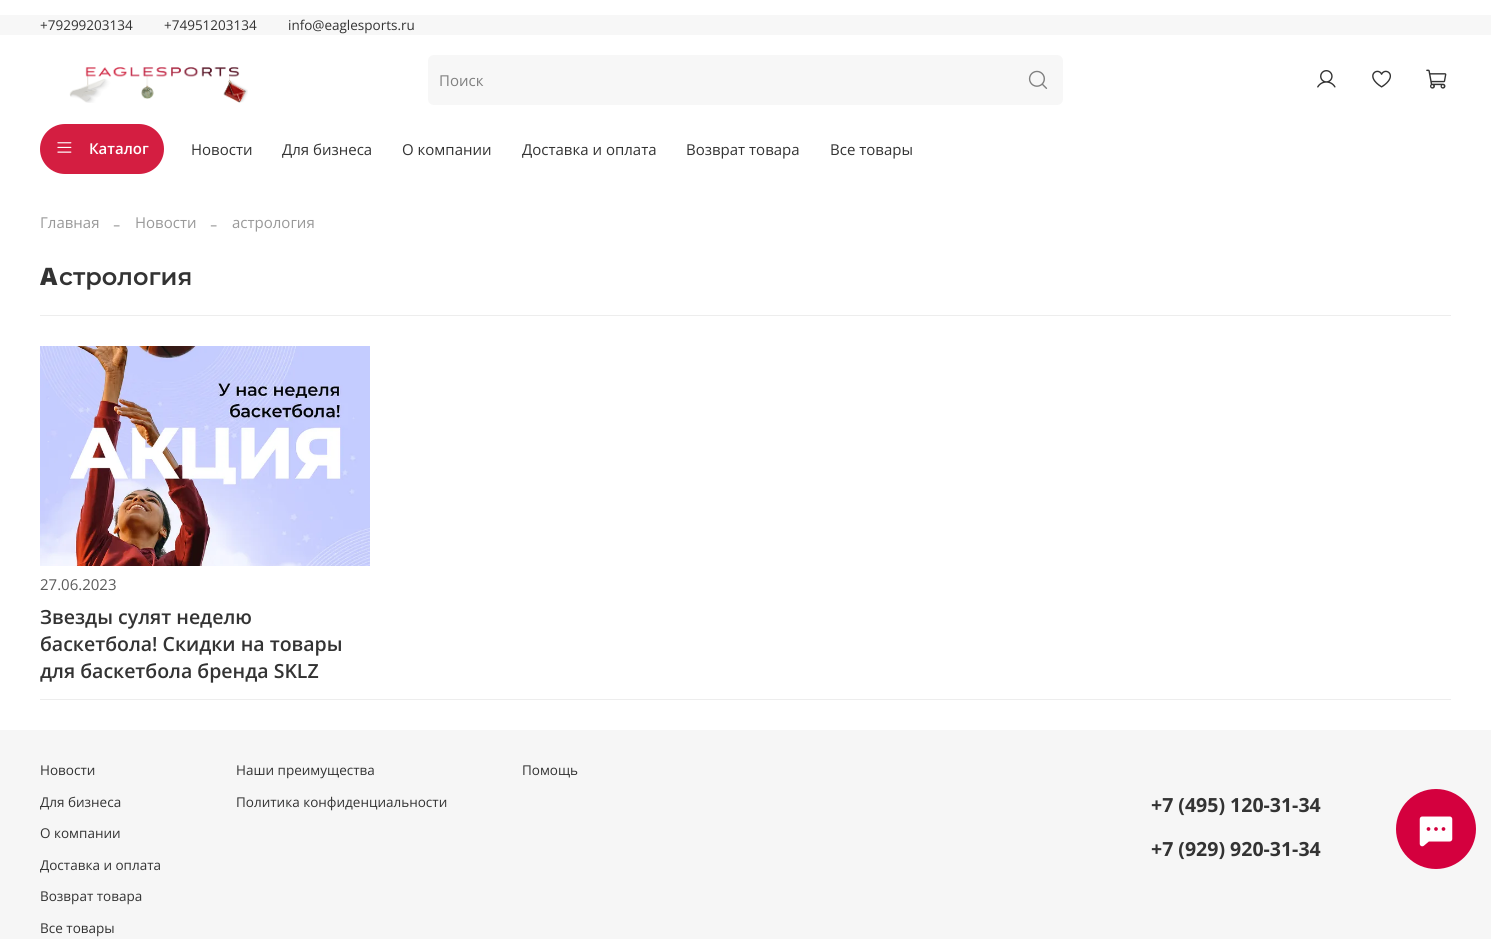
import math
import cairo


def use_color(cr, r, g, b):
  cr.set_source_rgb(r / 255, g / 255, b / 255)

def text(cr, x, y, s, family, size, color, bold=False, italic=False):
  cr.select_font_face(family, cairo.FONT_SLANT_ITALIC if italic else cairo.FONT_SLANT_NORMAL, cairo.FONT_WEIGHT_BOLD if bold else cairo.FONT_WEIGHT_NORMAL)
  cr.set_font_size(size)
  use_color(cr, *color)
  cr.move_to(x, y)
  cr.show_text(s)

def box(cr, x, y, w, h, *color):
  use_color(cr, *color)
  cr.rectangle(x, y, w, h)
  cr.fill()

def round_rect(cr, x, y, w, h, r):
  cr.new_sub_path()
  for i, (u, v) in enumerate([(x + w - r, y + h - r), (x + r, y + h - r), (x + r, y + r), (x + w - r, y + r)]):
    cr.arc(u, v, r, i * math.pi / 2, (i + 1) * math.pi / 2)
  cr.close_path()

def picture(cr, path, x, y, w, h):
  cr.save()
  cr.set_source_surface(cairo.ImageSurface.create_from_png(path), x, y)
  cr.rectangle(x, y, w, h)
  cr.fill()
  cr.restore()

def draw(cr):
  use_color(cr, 255, 255, 255)
  cr.paint()
  box(cr, 0, 15, 1491, 20, 247, 247, 247)
  picture(cr, "img_01.png", 69, 67, 179, 36)
  cr.new_path()
  cr.move_to(434, 55)
  cr.line_to(1013, 55)
  cr.line_to(1013, 105)
  cr.line_to(434, 105)
  cr.curve_to(430.5, 105, 428, 102.5, 428, 99)
  cr.line_to(428, 61)
  cr.curve_to(428, 57.5, 430.5, 55, 434, 55)
  cr.close_path()
  cr.fill()
  cr.new_path()
  cr.move_to(1013, 55)
  cr.line_to(1057, 55)
  cr.curve_to(1060.5, 55, 1063, 57.5, 1063, 61)
  cr.line_to(1063, 99)
  cr.curve_to(1063, 102.5, 1060.5, 105, 1057, 105)
  cr.line_to(1013, 105)
  cr.close_path()
  cr.fill()
  picture(cr, "img_02.png", 1028, 70, 20, 19)
  picture(cr, "img_03.png", 1317, 70, 19, 18)
  picture(cr, "img_04.png", 1372, 70, 19, 18)
  picture(cr, "img_05.png", 1426, 69, 21, 20)
  use_color(cr, 212, 30, 65)
  round_rect(cr, 40, 124, 124, 50, 25)
  cr.fill()
  picture(cr, "img_06.png", 57, 142, 15, 11)
  box(cr, 40, 315, 1411, 1, 237, 237, 237)
  box(cr, 40, 699, 1411, 1, 237, 237, 237)
  picture(cr, "img_07.png", 40, 346, 330, 220)
  box(cr, 0, 730, 1491, 209, 246, 246, 246)
  use_color(cr, 212, 0, 62)
  cr.arc(1436, 829, 40, 0, 2 * math.pi)
  cr.fill()
  picture(cr, "img_08.png", 1419, 816, 34, 31)
  text(cr, 40, 30, "+79299203134", "Open Sans", 13.5, (51, 51, 51))
  text(cr, 164, 30, "+74951203134", "Open Sans", 13.5, (51, 51, 51))
  text(cr, 288, 30, "info@eaglesports.ru", "Open Sans", 13.5, (51, 51, 51))
  text(cr, 439, 86, "Поиск", "Open Sans", 15, (128, 128, 128))
  text(cr, 89, 154, "Каталог", "Open Sans SemiBold", 15, (255, 255, 255))
  text(cr, 191, 155, "Новости", "Open Sans", 15, (51, 51, 51))
  text(cr, 282, 155, "Для бизнеса", "Open Sans", 15, (51, 51, 51))
  text(cr, 402, 155, "О компании", "Open Sans", 15, (51, 51, 51))
  text(cr, 522, 155, "Доставка и оплата", "Open Sans", 15, (51, 51, 51))
  text(cr, 686, 155, "Возврат товара", "Open Sans", 15, (51, 51, 51))
  text(cr, 830, 155, "Все товары", "Open Sans", 15, (51, 51, 51))
  text(cr, 40, 228, "Главная", "Open Sans", 15, (153, 153, 153))
  text(cr, 113, 231, "-", "Liberation Serif", 22, (184, 184, 184))
  text(cr, 135, 228, "Новости", "Open Sans", 15, (153, 153, 153))
  text(cr, 210, 231, "-", "Liberation Serif", 22, (184, 184, 184))
  text(cr, 232, 228, "астрология", "Open Sans", 15, (153, 153, 153))
  text(cr, 40, 285, "А", "Noto Sans Black", 24, (51, 51, 51))
  text(cr, 59, 285, "стрология", "Montserrat SemiBold", 24, (51, 51, 51))
  text(cr, 40, 590, "27.06.2023", "Open Sans", 15, (92, 92, 92))
  text(cr, 40, 624, "Звезды сулят неделю", "Open Sans SemiBold", 19.5, (51, 51, 51))
  text(cr, 40, 651, "баскетбола! Скидки на товары", "Open Sans SemiBold", 19.5, (51, 51, 51))
  text(cr, 40, 678, "для баскетбола бренда SKLZ", "Open Sans SemiBold", 19.5, (51, 51, 51))
  text(cr, 40, 775, "Новости", "Open Sans", 13.5, (51, 51, 51))
  text(cr, 40, 807, "Для бизнеса", "Open Sans", 13.5, (51, 51, 51))
  text(cr, 40, 838, "О компании", "Open Sans", 13.5, (51, 51, 51))
  text(cr, 40, 870, "Доставка и оплата", "Open Sans", 13.5, (51, 51, 51))
  text(cr, 40, 901, "Возврат товара", "Open Sans", 13.5, (51, 51, 51))
  text(cr, 40, 933, "Все товары", "Open Sans", 13.5, (51, 51, 51))
  text(cr, 236, 775, "Наши преимущества", "Open Sans", 13.5, (51, 51, 51))
  text(cr, 236, 807, "Политика конфиденциальности", "Open Sans", 13.5, (51, 51, 51))
  text(cr, 522, 775, "Помощь", "Open Sans", 13.5, (51, 51, 51))
  text(cr, 1151, 812, "+7 (495) 120-31-34", "Open Sans", 19.5, (51, 51, 51), bold=True)
  text(cr, 1151, 856, "+7 (929) 920-31-34", "Open Sans", 19.5, (51, 51, 51), bold=True)


surface = cairo.ImageSurface(cairo.FORMAT_RGB24, 1491, 939)
cr = cairo.Context(surface)
options = cairo.FontOptions()
options.set_hint_metrics(cairo.HINT_METRICS_OFF)
options.set_hint_style(cairo.HINT_STYLE_NONE)
cr.set_font_options(options)
cr.set_miter_limit(4)
draw(cr)
surface.write_to_png("out.png")
